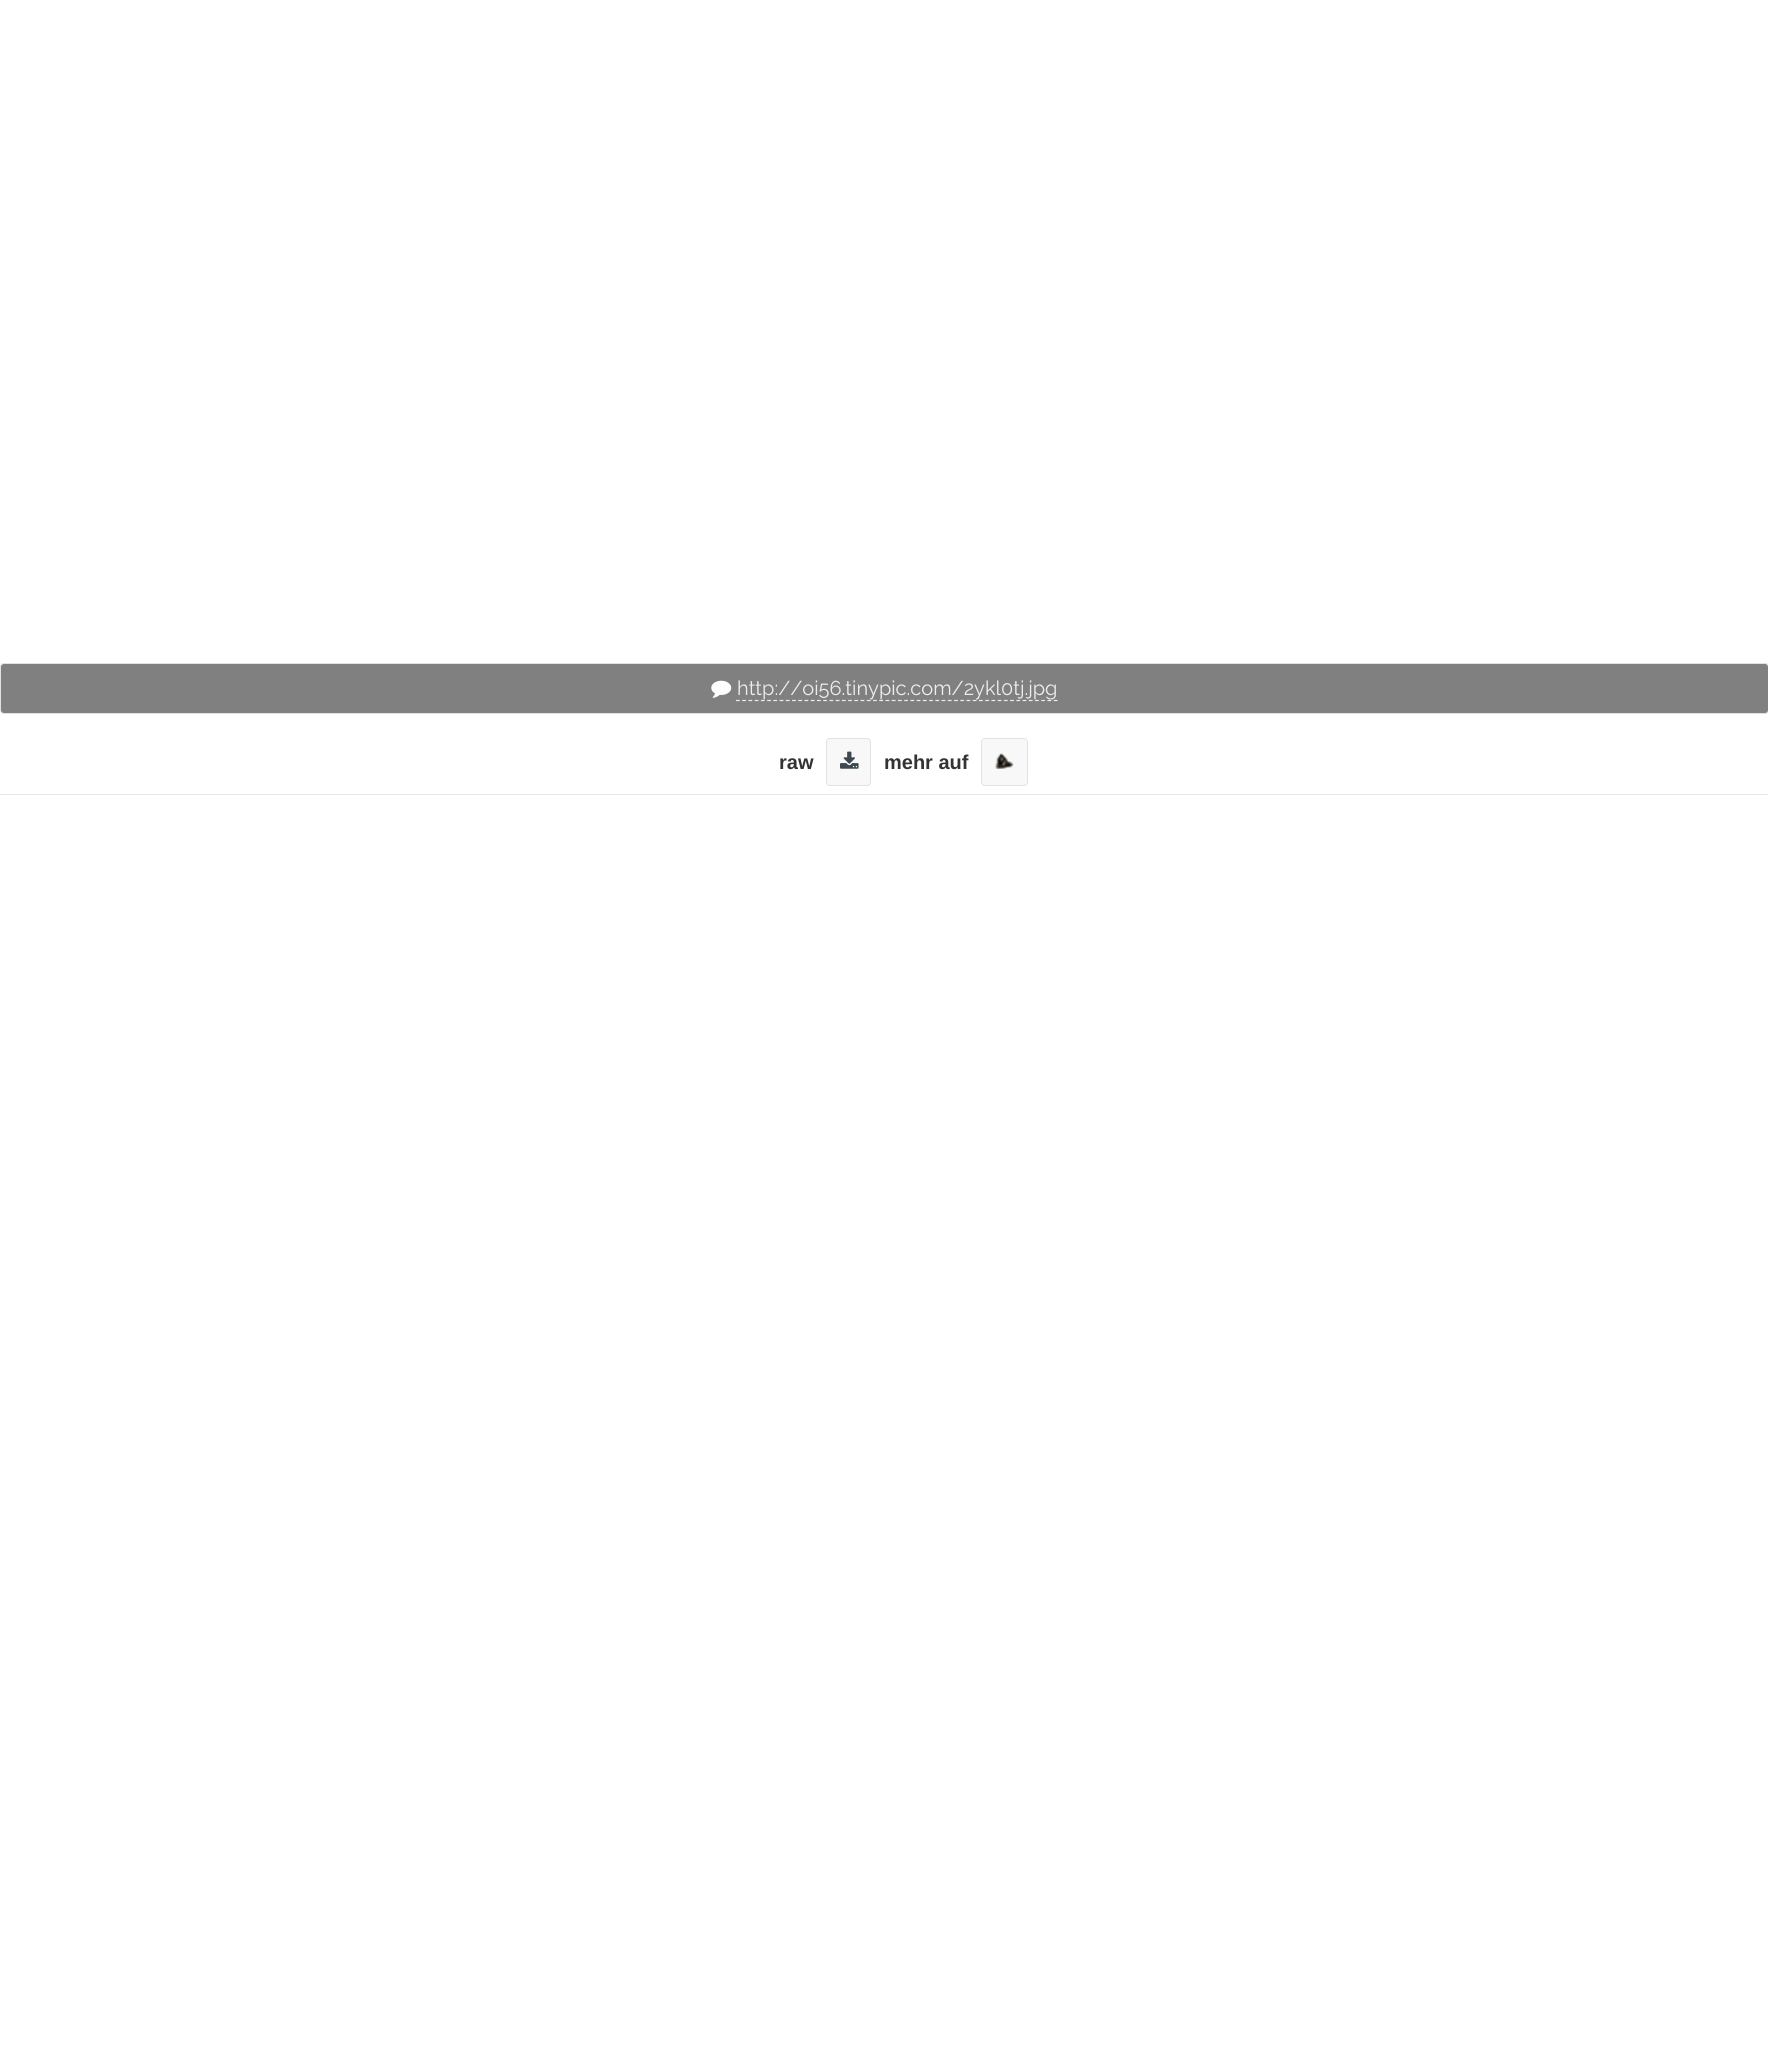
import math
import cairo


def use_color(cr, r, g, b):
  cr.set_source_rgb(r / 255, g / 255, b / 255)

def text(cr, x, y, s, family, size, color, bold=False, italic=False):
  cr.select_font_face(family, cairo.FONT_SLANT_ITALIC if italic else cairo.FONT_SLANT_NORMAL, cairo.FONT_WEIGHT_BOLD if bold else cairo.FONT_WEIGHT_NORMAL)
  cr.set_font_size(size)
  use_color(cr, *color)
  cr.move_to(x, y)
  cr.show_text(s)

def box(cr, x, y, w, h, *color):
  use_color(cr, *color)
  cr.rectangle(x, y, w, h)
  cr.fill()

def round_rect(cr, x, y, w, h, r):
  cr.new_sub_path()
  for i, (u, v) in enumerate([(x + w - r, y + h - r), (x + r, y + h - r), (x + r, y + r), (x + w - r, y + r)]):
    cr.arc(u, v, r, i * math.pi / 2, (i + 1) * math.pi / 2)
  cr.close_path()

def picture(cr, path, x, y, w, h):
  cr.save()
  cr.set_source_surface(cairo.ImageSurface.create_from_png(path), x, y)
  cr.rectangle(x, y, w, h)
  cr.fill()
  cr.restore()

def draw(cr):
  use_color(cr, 255, 255, 255)
  cr.paint()
  use_color(cr, 128, 128, 128)
  round_rect(cr, 0.5, 663.5, 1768, 50, 3.5)
  cr.fill_preserve()
  use_color(cr, 226, 226, 226)
  cr.set_line_width(1)
  cr.stroke()
  picture(cr, "img_01.png", 711, 680, 21, 18)
  cr.new_path()
  cr.move_to(736, 700.5)
  cr.line_to(1057.5, 700.5)
  use_color(cr, 237, 237, 237)
  cr.set_line_width(1.2)
  cr.set_dash([3.75, 2.48])
  cr.stroke()
  box(cr, 0, 794, 1768, 1, 231, 231, 231)
  use_color(cr, 248, 248, 248)
  round_rect(cr, 826.5, 738.5, 44, 47, 3.5)
  cr.fill_preserve()
  use_color(cr, 226, 226, 226)
  cr.set_line_width(1)
  cr.set_dash([])
  cr.stroke()
  picture(cr, "img_02.png", 840, 751, 19, 18)
  use_color(cr, 248, 248, 248)
  round_rect(cr, 981.5, 738.5, 46, 47, 3.5)
  cr.fill_preserve()
  use_color(cr, 226, 226, 226)
  cr.stroke()
  picture(cr, "img_03.png", 995, 753, 19, 16)
  text(cr, 737, 695, "http://oi56.tinypic.com/2ykl0tj.jpg", "Raleway", 20, (237, 237, 237))
  text(cr, 779, 769, "raw", "Liberation Sans", 20, (51, 51, 51), bold=True)
  text(cr, 884, 769, "mehr auf", "Liberation Sans", 20, (51, 51, 51), bold=True)


surface = cairo.ImageSurface(cairo.FORMAT_RGB24, 1768, 2071)
cr = cairo.Context(surface)
options = cairo.FontOptions()
options.set_hint_metrics(cairo.HINT_METRICS_OFF)
options.set_hint_style(cairo.HINT_STYLE_NONE)
cr.set_font_options(options)
cr.set_miter_limit(4)
draw(cr)
surface.write_to_png("out.png")
